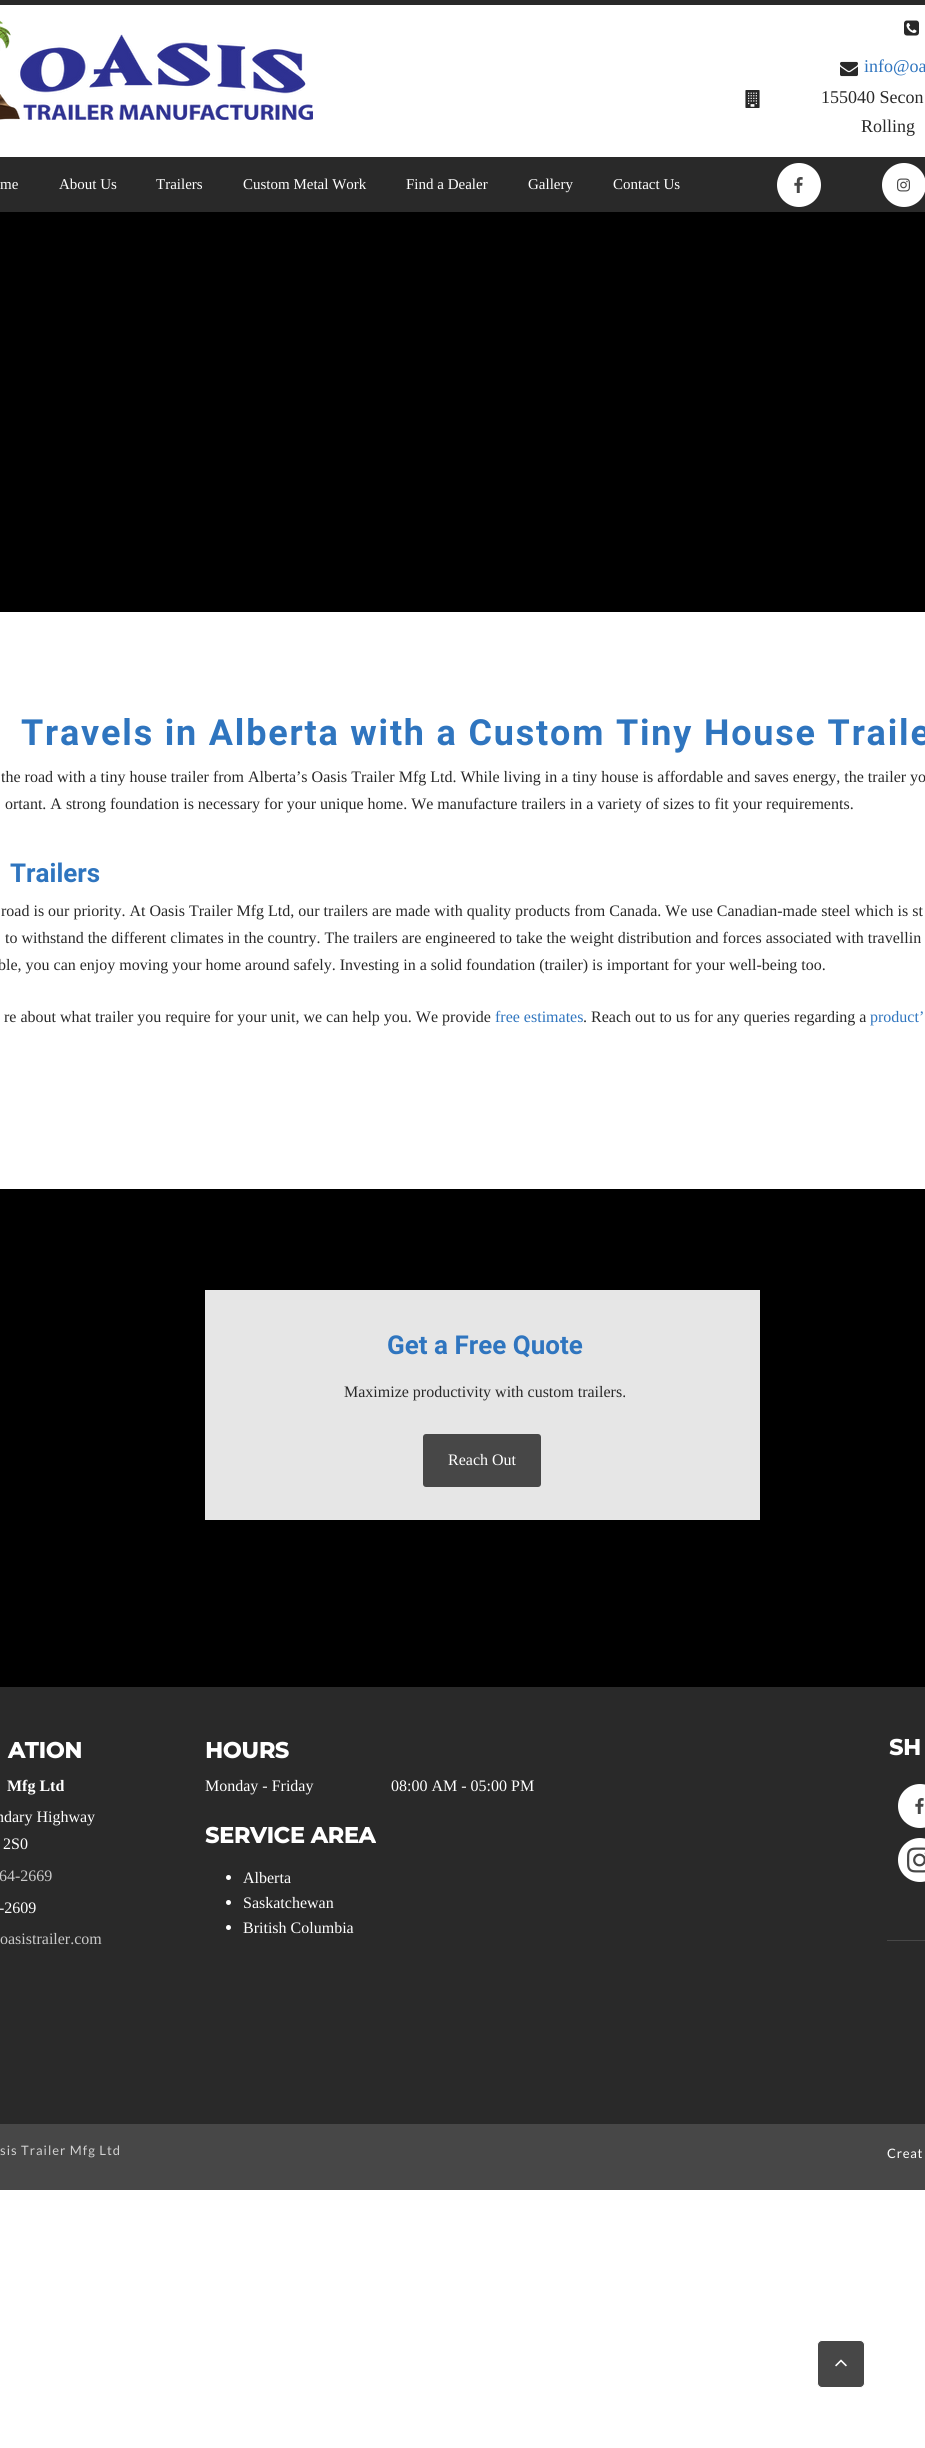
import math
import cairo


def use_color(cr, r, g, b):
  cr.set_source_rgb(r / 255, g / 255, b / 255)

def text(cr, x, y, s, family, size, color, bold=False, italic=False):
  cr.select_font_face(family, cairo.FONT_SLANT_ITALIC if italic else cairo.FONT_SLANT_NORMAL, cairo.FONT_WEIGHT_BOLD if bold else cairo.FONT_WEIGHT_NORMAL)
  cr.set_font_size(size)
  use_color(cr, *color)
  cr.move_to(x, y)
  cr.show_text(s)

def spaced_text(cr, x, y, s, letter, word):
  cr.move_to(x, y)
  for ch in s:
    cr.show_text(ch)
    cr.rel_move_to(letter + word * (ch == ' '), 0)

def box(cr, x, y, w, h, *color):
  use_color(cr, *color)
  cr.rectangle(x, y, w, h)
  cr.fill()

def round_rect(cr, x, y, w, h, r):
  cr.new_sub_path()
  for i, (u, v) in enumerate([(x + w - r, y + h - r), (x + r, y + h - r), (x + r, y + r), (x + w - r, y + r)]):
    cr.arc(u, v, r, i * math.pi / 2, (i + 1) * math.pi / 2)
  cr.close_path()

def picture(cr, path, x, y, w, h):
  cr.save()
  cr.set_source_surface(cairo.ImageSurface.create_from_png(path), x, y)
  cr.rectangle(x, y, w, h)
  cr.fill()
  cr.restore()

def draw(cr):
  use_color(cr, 255, 255, 255)
  cr.paint()
  box(cr, 0, 0, 925, 5, 41, 41, 41)
  picture(cr, "img_01.png", 0, 20, 313, 100)
  picture(cr, "img_02.png", 904, 20, 15, 16)
  picture(cr, "img_03.png", 840, 61, 18, 16)
  picture(cr, "img_04.png", 745, 90, 15, 18)
  box(cr, 0, 157, 925, 55, 41, 41, 41)
  use_color(cr, 255, 255, 255)
  cr.arc(799, 185, 22, 0, 2 * math.pi)
  cr.fill()
  picture(cr, "img_05.png", 794, 177, 9, 16)
  cr.arc(904, 185, 22, 0, 2 * math.pi)
  cr.fill()
  picture(cr, "img_06.png", 897, 178, 13, 14)
  box(cr, 0, 212, 925, 400, 0, 0, 0)
  box(cr, 0, 1189, 925, 498, 0, 0, 0)
  box(cr, 205, 1290, 555, 230, 230, 230, 230)
  use_color(cr, 71, 71, 71)
  round_rect(cr, 423, 1434, 118, 53, 3)
  cr.fill()
  box(cr, 0, 1687, 925, 437, 41, 41, 41)
  use_color(cr, 255, 255, 255)
  cr.arc(228.5, 1877.5, 2.5, 0, 2 * math.pi)
  cr.fill()
  cr.arc(228.5, 1902.5, 2.5, 0, 2 * math.pi)
  cr.fill()
  cr.arc(228.5, 1927.5, 2.5, 0, 2 * math.pi)
  cr.fill()
  cr.arc(920, 1806, 22, 0, 2 * math.pi)
  cr.fill()
  picture(cr, "img_05.png", 915, 1798, 9, 16)
  cr.arc(920, 1860, 22, 0, 2 * math.pi)
  cr.fill()
  picture(cr, "img_07.png", 907, 1847, 18, 26)
  box(cr, 887, 1940, 38, 1, 71, 71, 71)
  box(cr, 0, 2124, 925, 66, 71, 71, 71)
  round_rect(cr, 817.5, 2340.5, 47, 47, 4.5)
  cr.fill_preserve()
  use_color(cr, 255, 255, 255)
  cr.set_line_width(1)
  cr.stroke()
  picture(cr, "img_08.png", 835, 2359, 12, 8)
  text(cr, 864, 72, "info@oa", "Liberation Serif", 18, (47, 117, 191))
  text(cr, 821, 103, "155040 Secon", "Liberation Serif", 18, (41, 41, 41))
  text(cr, 861, 132, "Rolling", "Liberation Serif", 18, (41, 41, 41))
  text(cr, 0, 189, "me", "Liberation Serif", 15, (255, 255, 255))
  text(cr, 59, 189, "About Us", "Liberation Serif", 15, (255, 255, 255))
  text(cr, 156, 189, "Trailers", "Liberation Serif", 15, (255, 255, 255))
  text(cr, 243, 189, "Custom Metal Work", "Liberation Serif", 15, (255, 255, 255))
  text(cr, 406, 189, "Find a Dealer", "Liberation Serif", 15, (255, 255, 255))
  text(cr, 528, 189, "Gallery", "Liberation Serif", 15, (255, 255, 255))
  text(cr, 613, 189, "Contact Us", "Liberation Serif", 15, (255, 255, 255))
  cr.select_font_face("Roboto", cairo.FONT_SLANT_NORMAL, cairo.FONT_WEIGHT_BOLD)
  cr.set_font_size(36)
  use_color(cr, 47, 117, 191)
  spaced_text(cr, 21, 745, "Travels in Alberta with a Custom Tiny House Traile", 1.8, 0)
  text(cr, 1, 782, "the road with a tiny house trailer from Alberta’s Oasis Trailer Mfg Ltd. While living in a tiny house is affordable and saves energy, the trailer yo", "Liberation Serif", 16, (41, 41, 41))
  text(cr, 5, 809, "ortant. A strong foundation is necessary for your unique home. We manufacture trailers in a variety of sizes to fit your requirements.", "Liberation Serif", 16, (41, 41, 41))
  text(cr, 10, 882, "Trailers", "Roboto", 26, (47, 117, 191), bold=True)
  text(cr, 1, 916, "road is our priority. At Oasis Trailer Mfg Ltd, our trailers are made with quality products from Canada. We use Canadian-made steel which is st", "Liberation Serif", 16, (41, 41, 41))
  text(cr, 5, 943, "to withstand the different climates in the country. The trailers are engineered to take the weight distribution and forces associated with travellin", "Liberation Serif", 16, (41, 41, 41))
  text(cr, -2, 970, "ble, you can enjoy moving your home around safely. Investing in a solid foundation (trailer) is important for your well-being too.", "Liberation Serif", 16, (41, 41, 41))
  text(cr, 4, 1022, "re about what trailer you require for your unit, we can help you. We provide", "Liberation Serif", 16, (41, 41, 41))
  text(cr, 495, 1022, "free estimates", "Liberation Serif", 16, (47, 117, 191))
  text(cr, 583, 1022, ". Reach out to us for any queries regarding a", "Liberation Serif", 16, (41, 41, 41))
  text(cr, 870, 1022, "product’", "Liberation Serif", 16, (47, 117, 191))
  text(cr, 387, 1354, "Get a Free Quote", "Roboto", 26, (47, 117, 191), bold=True)
  text(cr, 344, 1397, "Maximize productivity with custom trailers.", "Liberation Serif", 16, (41, 41, 41))
  text(cr, 448, 1465, "Reach Out", "Liberation Serif", 16, (255, 255, 255))
  text(cr, 8, 1758, "ATION", "Montserrat", 22, (255, 255, 255), bold=True)
  text(cr, 7, 1791, "Mfg Ltd", "Liberation Serif", 16, (255, 255, 255), bold=True)
  text(cr, -4, 1822, "ndary Highway", "Liberation Serif", 16, (255, 255, 255))
  text(cr, 3, 1849, "2S0", "Liberation Serif", 16, (255, 255, 255))
  text(cr, -1, 1881, "64-2669", "Liberation Serif", 16, (202, 202, 202))
  text(cr, -1, 1913, "-2609", "Liberation Serif", 16, (255, 255, 255))
  text(cr, 0, 1944, "oasistrailer.com", "Liberation Serif", 16, (202, 202, 202))
  text(cr, 205, 1758, "HOURS", "Montserrat", 22, (255, 255, 255), bold=True)
  text(cr, 205, 1791, "Monday - Friday", "Liberation Serif", 16, (255, 255, 255))
  text(cr, 391, 1791, "08:00 AM - 05:00 PM", "Liberation Serif", 16, (255, 255, 255))
  text(cr, 205, 1843, "SERVICE AREA", "Montserrat", 22, (255, 255, 255), bold=True)
  text(cr, 243, 1883, "Alberta", "Liberation Serif", 16, (255, 255, 255))
  text(cr, 243, 1908, "Saskatchewan", "Liberation Serif", 16, (255, 255, 255))
  text(cr, 243, 1933, "British Columbia", "Liberation Serif", 16, (255, 255, 255))
  text(cr, 889, 1755, "SH", "Montserrat", 22, (255, 255, 255), bold=True)
  cr.select_font_face("Lato")
  cr.set_font_size(13)
  use_color(cr, 209, 209, 209)
  spaced_text(cr, 0, 2155, "sis Trailer Mfg Ltd", 1, 0)
  use_color(cr, 255, 255, 255)
  spaced_text(cr, 887, 2158, "Creat", 0.75, 0)


surface = cairo.ImageSurface(cairo.FORMAT_RGB24, 925, 2448)
cr = cairo.Context(surface)
options = cairo.FontOptions()
options.set_hint_metrics(cairo.HINT_METRICS_OFF)
options.set_hint_style(cairo.HINT_STYLE_NONE)
cr.set_font_options(options)
cr.set_miter_limit(4)
draw(cr)
surface.write_to_png("out.png")
